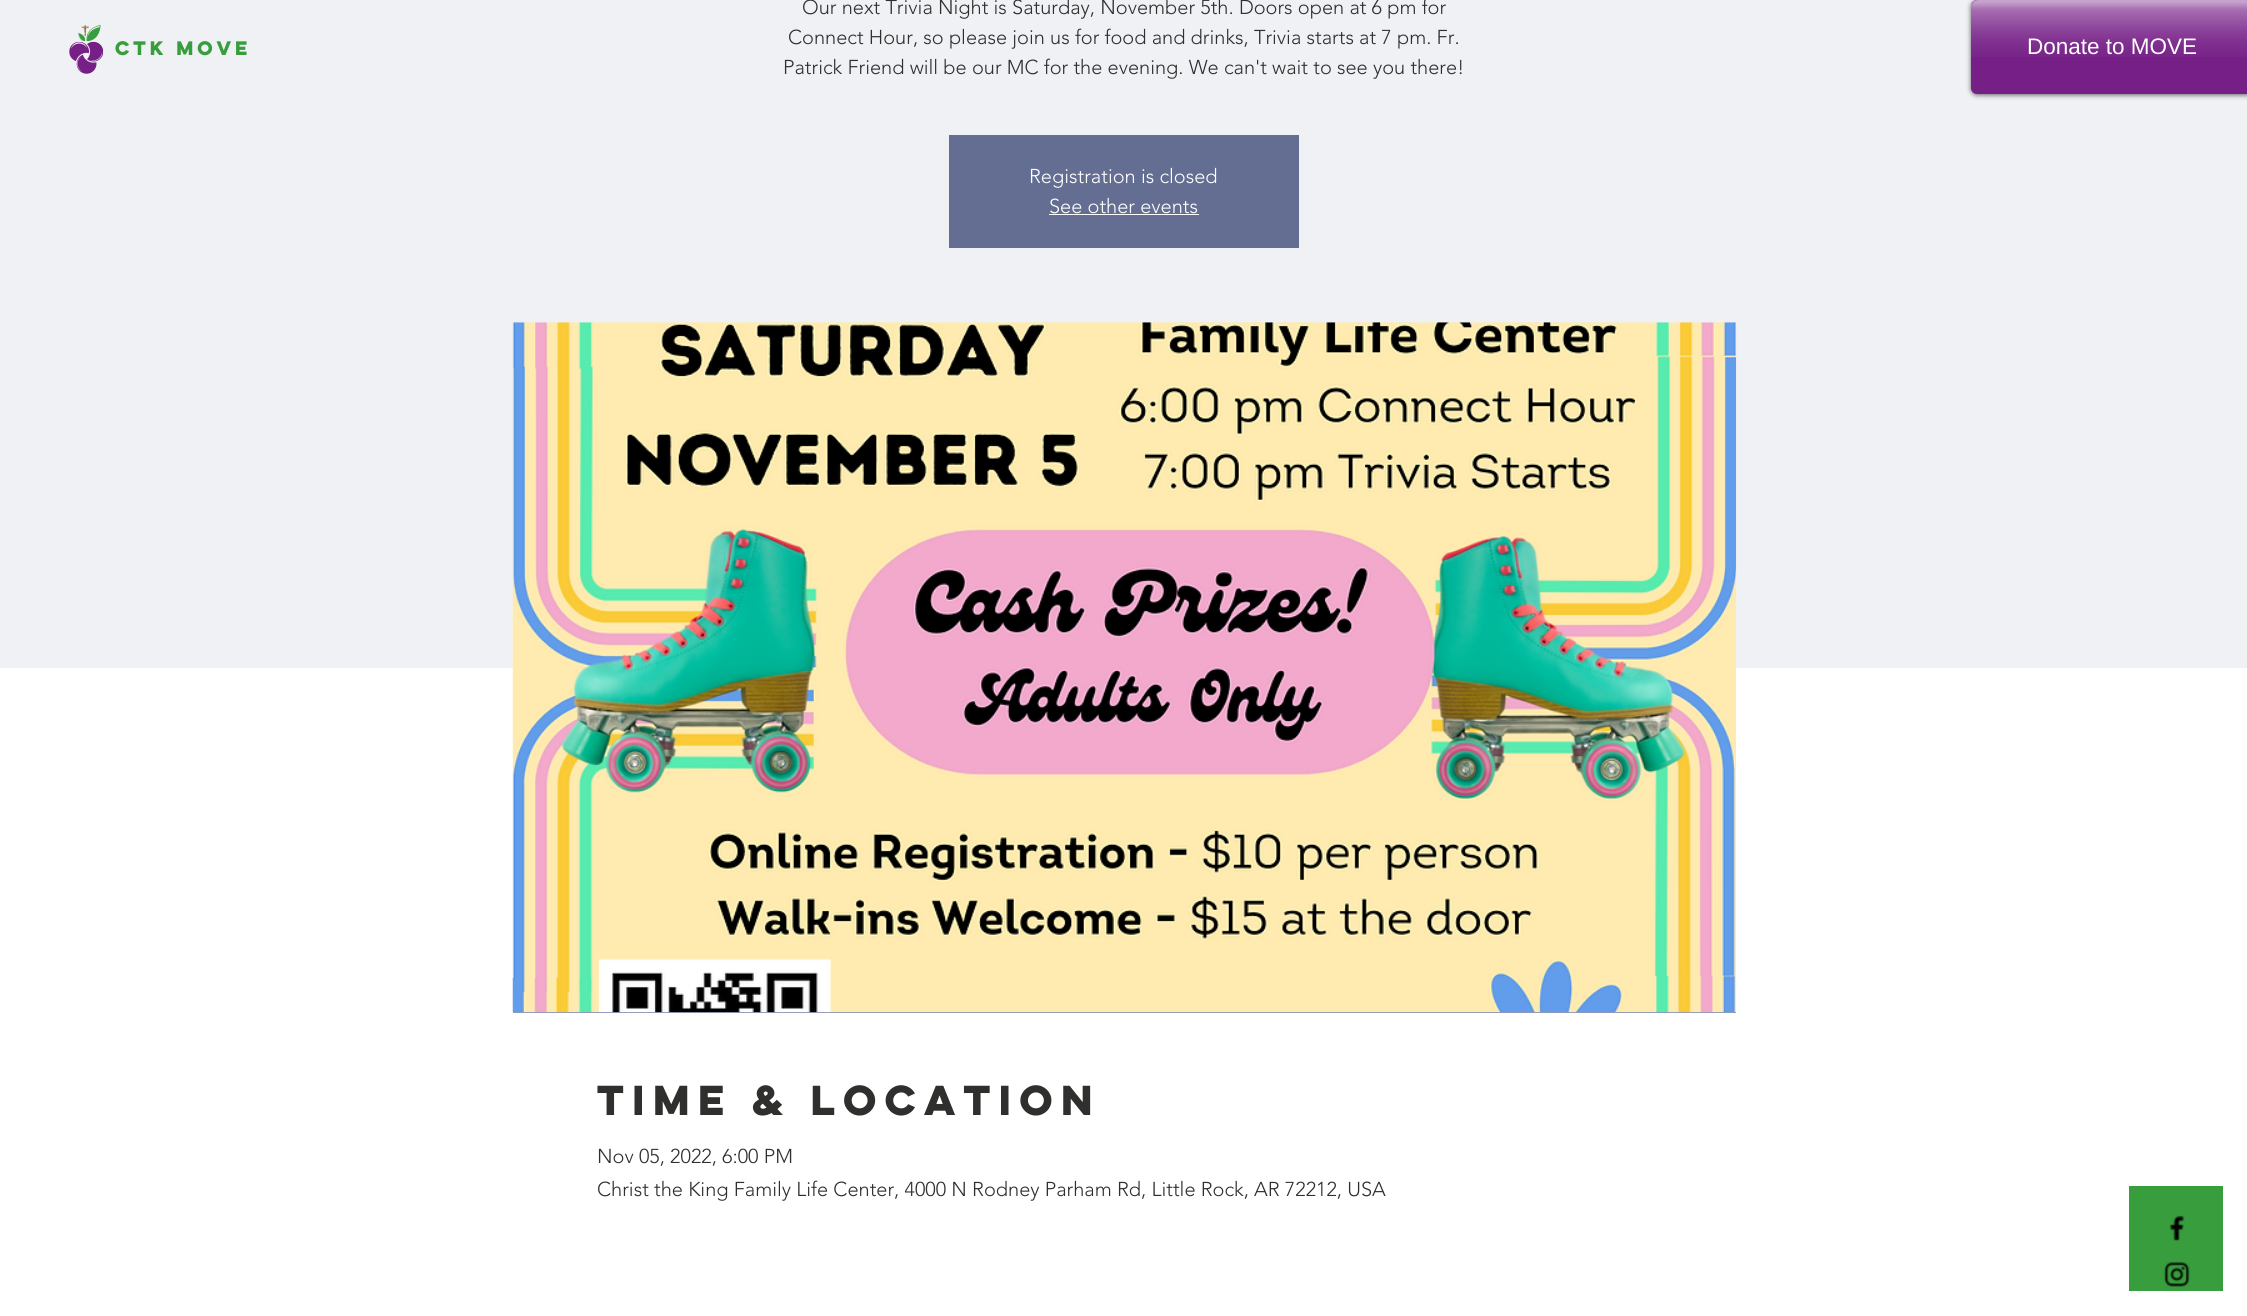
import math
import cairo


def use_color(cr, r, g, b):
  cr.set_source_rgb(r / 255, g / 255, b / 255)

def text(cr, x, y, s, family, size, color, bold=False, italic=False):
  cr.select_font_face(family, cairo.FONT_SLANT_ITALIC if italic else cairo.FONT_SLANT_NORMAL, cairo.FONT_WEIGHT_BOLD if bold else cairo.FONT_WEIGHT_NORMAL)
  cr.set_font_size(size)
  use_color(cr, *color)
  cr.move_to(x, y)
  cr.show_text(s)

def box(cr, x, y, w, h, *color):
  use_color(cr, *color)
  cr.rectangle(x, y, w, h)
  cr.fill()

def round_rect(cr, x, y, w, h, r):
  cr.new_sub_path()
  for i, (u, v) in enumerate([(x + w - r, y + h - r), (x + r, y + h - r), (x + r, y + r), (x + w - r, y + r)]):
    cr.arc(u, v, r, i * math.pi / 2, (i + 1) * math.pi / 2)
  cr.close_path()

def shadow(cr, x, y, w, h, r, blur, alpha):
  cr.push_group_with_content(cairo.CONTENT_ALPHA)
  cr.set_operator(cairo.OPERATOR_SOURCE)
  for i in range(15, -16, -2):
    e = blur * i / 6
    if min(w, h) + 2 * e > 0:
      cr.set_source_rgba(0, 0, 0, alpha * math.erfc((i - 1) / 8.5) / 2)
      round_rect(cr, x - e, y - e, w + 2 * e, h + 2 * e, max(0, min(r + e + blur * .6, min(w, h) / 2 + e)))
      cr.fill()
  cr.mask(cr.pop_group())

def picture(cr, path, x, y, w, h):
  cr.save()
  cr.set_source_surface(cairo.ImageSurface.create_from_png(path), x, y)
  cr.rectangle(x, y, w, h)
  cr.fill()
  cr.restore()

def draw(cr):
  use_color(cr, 255, 255, 255)
  cr.paint()
  box(cr, 0, 0, 2247, 668, 240, 241, 245)
  picture(cr, "img_01.png", 69, 25, 35, 49)
  box(cr, 949, 135, 350, 113, 99, 110, 146)
  box(cr, 1049, 214, 150, 1, 255, 255, 255)
  box(cr, 513, 1012, 1223, 1, 143, 152, 182)
  picture(cr, "img_02.png", 512, 322, 1225, 691)
  use_color(cr, 0, 0, 0)
  shadow(cr, 1971, 1, 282, 94, 6, 2.5, 0.6)
  use_color(cr, 118, 31, 135)
  round_rect(cr, 1971, 0, 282, 94, 6)
  cr.fill()
  picture(cr, "img_03.png", 1971, 0, 276, 57)
  box(cr, 2129, 1186, 94, 105, 56, 157, 61)
  picture(cr, "img_04.png", 2169, 1215, 16, 26)
  picture(cr, "img_05.png", 2164, 1262, 26, 25)
  text(cr, 115, 55, "CTK MOVE", "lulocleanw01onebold", 17.5, (56, 157, 61), bold=True)
  text(cr, 802, 14, "Our next Trivia Night is Saturday, November 5th. Doors open at 6 pm for", "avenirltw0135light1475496 Light", 20, (47, 47, 46))
  text(cr, 788, 44, "Connect Hour, so please join us for food and drinks, Trivia starts at 7 pm. Fr.", "avenirltw0135light1475496 Light", 20, (47, 47, 46))
  text(cr, 783, 74, "Patrick Friend will be our MC for the evening. We can't wait to see you there!", "avenirltw0135light1475496 Light", 20, (47, 47, 46))
  text(cr, 1029, 183, "Registration is closed", "avenirltw0135light1475496 Light", 20, (255, 255, 255))
  text(cr, 1049, 213, "See other events", "avenirltw0135light1475496 Light", 20, (255, 255, 255))
  text(cr, 597, 1115, "Time & Location", "lulocleanw01onebold", 37.5, (47, 47, 46), bold=True)
  text(cr, 597, 1163, "Nov 05, 2022, 6:00 PM", "avenirltw0135light1475496 Light", 20, (47, 47, 46))
  text(cr, 597, 1196, "Christ the King Family Life Center, 4000 N Rodney Parham Rd, Little Rock, AR 72212, USA", "avenirltw0135light1475496 Light", 20, (47, 47, 46))
  text(cr, 2027, 54, "Donate to MOVE", "Liberation Sans", 22.5, (255, 255, 255))


surface = cairo.ImageSurface(cairo.FORMAT_RGB24, 2247, 1316)
cr = cairo.Context(surface)
options = cairo.FontOptions()
options.set_hint_metrics(cairo.HINT_METRICS_OFF)
options.set_hint_style(cairo.HINT_STYLE_NONE)
cr.set_font_options(options)
cr.set_miter_limit(4)
draw(cr)
surface.write_to_png("out.png")
